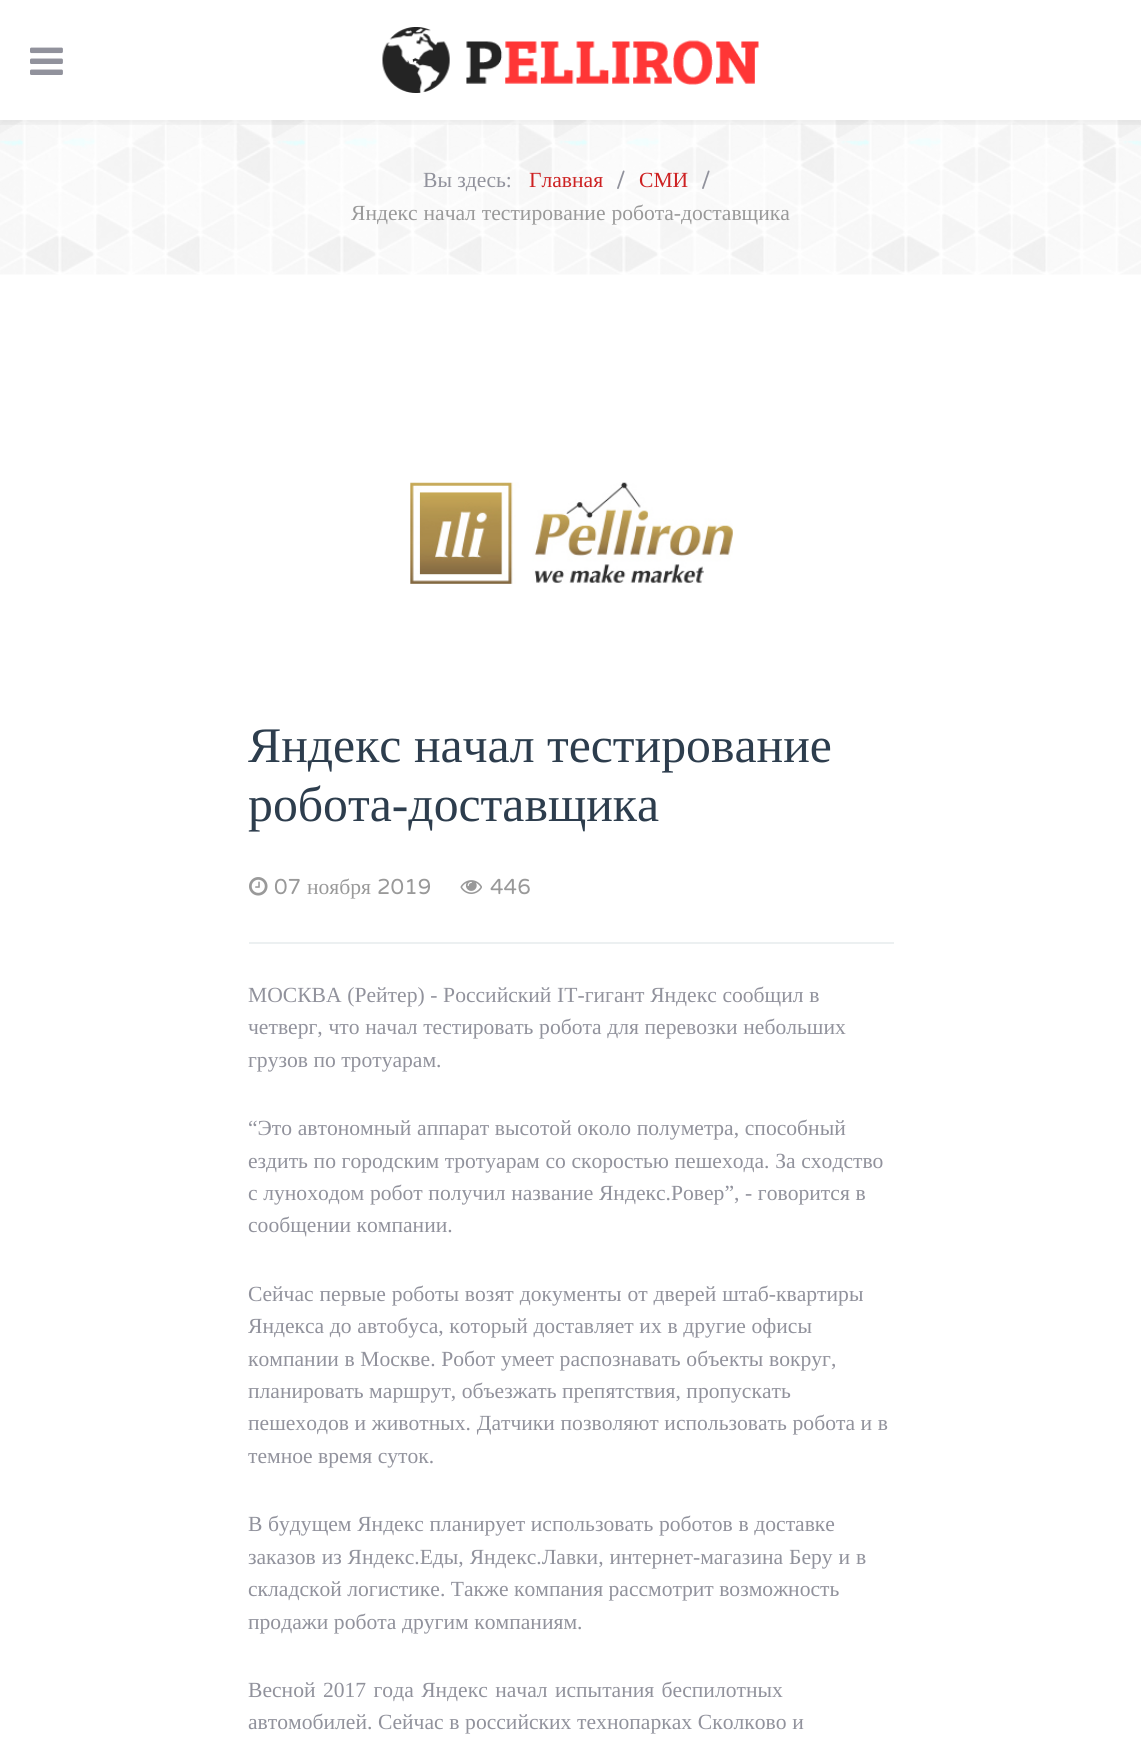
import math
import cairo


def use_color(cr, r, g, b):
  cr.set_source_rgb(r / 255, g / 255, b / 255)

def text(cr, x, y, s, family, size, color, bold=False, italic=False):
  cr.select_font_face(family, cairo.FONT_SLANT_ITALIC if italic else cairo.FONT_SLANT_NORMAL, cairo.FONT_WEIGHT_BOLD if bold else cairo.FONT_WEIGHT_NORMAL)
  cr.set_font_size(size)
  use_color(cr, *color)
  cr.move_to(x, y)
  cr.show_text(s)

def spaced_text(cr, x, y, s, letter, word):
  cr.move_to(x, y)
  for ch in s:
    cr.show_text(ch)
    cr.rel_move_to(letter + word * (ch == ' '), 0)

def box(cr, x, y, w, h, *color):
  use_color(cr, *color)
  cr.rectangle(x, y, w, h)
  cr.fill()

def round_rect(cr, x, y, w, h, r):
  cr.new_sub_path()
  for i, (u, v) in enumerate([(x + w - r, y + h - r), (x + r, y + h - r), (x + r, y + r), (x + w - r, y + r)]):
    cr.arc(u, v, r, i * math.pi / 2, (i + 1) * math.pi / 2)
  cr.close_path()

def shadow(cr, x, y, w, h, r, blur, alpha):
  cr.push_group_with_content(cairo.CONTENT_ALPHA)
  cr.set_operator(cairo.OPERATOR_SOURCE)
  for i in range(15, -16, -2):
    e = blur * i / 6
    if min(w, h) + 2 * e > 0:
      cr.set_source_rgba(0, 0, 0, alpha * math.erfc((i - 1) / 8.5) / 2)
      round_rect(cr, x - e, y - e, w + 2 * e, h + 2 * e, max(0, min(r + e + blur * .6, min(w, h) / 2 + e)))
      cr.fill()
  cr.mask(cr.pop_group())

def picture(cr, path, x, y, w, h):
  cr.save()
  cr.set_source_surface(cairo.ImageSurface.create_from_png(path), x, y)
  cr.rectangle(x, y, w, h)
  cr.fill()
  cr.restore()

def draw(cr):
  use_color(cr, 255, 255, 255)
  cr.paint()
  picture(cr, "img_03.png", 0, 120, 1141, 155)
  cr.save()
  cr.rectangle(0, 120, 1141, 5)
  cr.clip()
  use_color(cr, 0, 0, 0)
  shadow(cr, 0, 5, 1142, 120, 0, 2, 0.05)
  cr.restore()
  picture(cr, "img_01.png", 30, 47, 33, 28)
  picture(cr, "img_02.png", 382, 27, 377, 66)
  picture(cr, "img_04.png", 410, 482, 323, 102)
  box(cr, 249, 942, 645, 2, 236, 240, 241)
  picture(cr, "img_05.png", 249, 877, 19, 19)
  picture(cr, "img_06.png", 460, 880, 22, 14)
  text(cr, 423, 187, "Вы здесь:", "Liberation Serif", 21.6, (145, 146, 156))
  text(cr, 529, 187, "Главная", "Liberation Serif", 21.6, (205, 33, 34))
  text(cr, 616, 187, "/", "Varela Round", 21.6, (145, 146, 156))
  text(cr, 639, 187, "СМИ", "Liberation Serif", 21.6, (205, 33, 34))
  text(cr, 701, 187, "/", "Varela Round", 21.6, (145, 146, 156))
  cr.select_font_face("Liberation Serif")
  use_color(cr, 153, 153, 153)
  spaced_text(cr, 351, 220, "Яндекс начал тестирование робота-доставщика", 0, 0.5)
  text(cr, 248, 762, "Яндекс начал тестирование", "Liberation Serif", 49.75, (45, 61, 77))
  text(cr, 248, 821, "робота-доставщика", "Liberation Serif", 49.75, (45, 61, 77))
  text(cr, 274, 894, "07", "Varela Round", 21.6, (153, 153, 153))
  text(cr, 307, 894, "ноября", "Liberation Serif", 21.6, (153, 153, 153))
  text(cr, 377, 894, "2019", "Varela Round", 21.6, (153, 153, 153))
  text(cr, 490, 894, "446", "Varela Round", 21.6, (153, 153, 153))
  cr.select_font_face("Liberation Serif")
  use_color(cr, 145, 146, 156)
  spaced_text(cr, 248, 1002, "МОСКВА (Рейтер) - Российский IT-гигант Яндекс сообщил в", 0, 0.25)
  spaced_text(cr, 248, 1034, "четверг, что начал тестировать робота для перевозки небольших", 0, 0.25)
  text(cr, 248, 1067, "грузов по тротуарам.", "Liberation Serif", 21.6, (145, 146, 156))
  spaced_text(cr, 248, 1135, "“Это автономный аппарат высотой около полуметра, способный", 0, 0.25)
  spaced_text(cr, 248, 1168, "ездить по городским тротуарам со скоростью пешехода. За сходство", 0, 0.25)
  spaced_text(cr, 248, 1200, "с луноходом робот получил название Яндекс.Ровер”, - говорится в", 0, 0.25)
  text(cr, 248, 1232, "сообщении компании.", "Liberation Serif", 21.6, (145, 146, 156))
  spaced_text(cr, 248, 1301, "Сейчас первые роботы возят документы от дверей штаб-квартиры", 0, 0.5)
  spaced_text(cr, 248, 1333, "Яндекса до автобуса, который доставляет их в другие офисы", 0, 0.25)
  spaced_text(cr, 248, 1366, "компании в Москве. Робот умеет распознавать объекты вокруг,", 0, 0.25)
  text(cr, 248, 1398, "планировать маршрут, объезжать препятствия, пропускать", "Liberation Serif", 21.6, (145, 146, 156))
  spaced_text(cr, 248, 1430, "пешеходов и животных. Датчики позволяют использовать робота и в", 0, 0.25)
  text(cr, 248, 1463, "темное время суток.", "Liberation Serif", 21.6, (145, 146, 156))
  spaced_text(cr, 248, 1531, "В будущем Яндекс планирует использовать роботов в доставке", 0, 0.25)
  spaced_text(cr, 248, 1564, "заказов из Яндекс.Еды, Яндекс.Лавки, интернет-магазина Беру и в", 0, 0.5)
  text(cr, 248, 1596, "складской логистике. Также компания рассмотрит возможность", "Liberation Serif", 21.6, (145, 146, 156))
  spaced_text(cr, 248, 1629, "продажи робота другим компаниям.", 0, 0.25)
  spaced_text(cr, 248, 1697, "Весной 2017 года Яндекс начал испытания беспилотных", 0, 2)
  spaced_text(cr, 248, 1729, "автомобилей. Сейчас в российских технопарках Сколково и", 0, 0.25)


surface = cairo.ImageSurface(cairo.FORMAT_RGB24, 1141, 1740)
cr = cairo.Context(surface)
options = cairo.FontOptions()
options.set_hint_metrics(cairo.HINT_METRICS_OFF)
options.set_hint_style(cairo.HINT_STYLE_NONE)
cr.set_font_options(options)
cr.set_miter_limit(4)
draw(cr)
surface.write_to_png("out.png")
